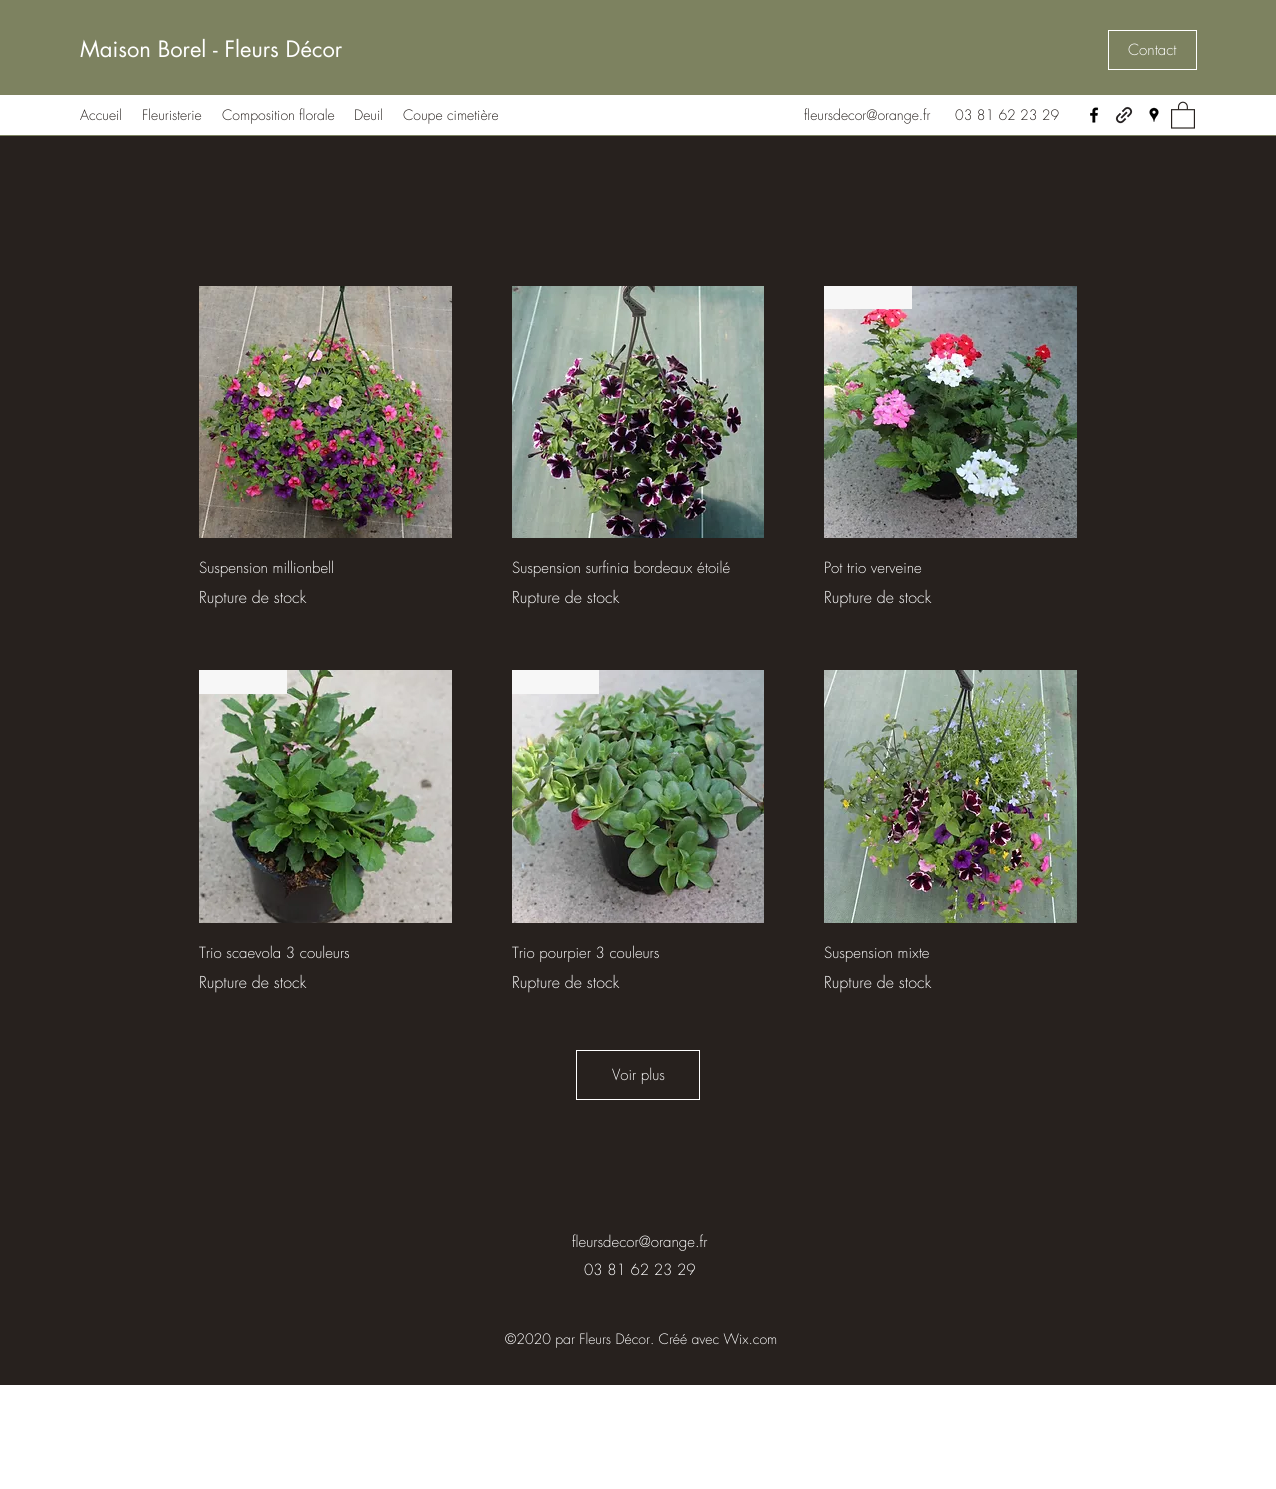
import math
import cairo


def use_color(cr, r, g, b):
  cr.set_source_rgb(r / 255, g / 255, b / 255)

def text(cr, x, y, s, family, size, color, bold=False, italic=False):
  cr.select_font_face(family, cairo.FONT_SLANT_ITALIC if italic else cairo.FONT_SLANT_NORMAL, cairo.FONT_WEIGHT_BOLD if bold else cairo.FONT_WEIGHT_NORMAL)
  cr.set_font_size(size)
  use_color(cr, *color)
  cr.move_to(x, y)
  cr.show_text(s)

def box(cr, x, y, w, h, *color):
  use_color(cr, *color)
  cr.rectangle(x, y, w, h)
  cr.fill()

def picture(cr, path, x, y, w, h):
  cr.save()
  cr.set_source_surface(cairo.ImageSurface.create_from_png(path), x, y)
  cr.rectangle(x, y, w, h)
  cr.fill()
  cr.restore()

def draw(cr):
  use_color(cr, 255, 255, 255)
  cr.paint()
  box(cr, 0, 0, 1276, 136, 125, 130, 96)
  cr.rectangle(1108.5, 30.5, 88, 39)
  use_color(cr, 255, 255, 255)
  cr.set_line_width(1)
  cr.stroke()
  box(cr, 0, 95, 1276, 40, 255, 255, 255)
  picture(cr, "img_01.png", 1090, 107, 9, 16)
  picture(cr, "img_02.png", 1115, 106, 18, 18)
  picture(cr, "img_03.png", 1149, 107, 10, 15)
  picture(cr, "img_04.png", 1171, 101, 24, 28)
  box(cr, 0, 136, 1276, 1249, 39, 33, 30)
  picture(cr, "img_05.png", 199, 286, 253, 252)
  picture(cr, "img_06.png", 512, 286, 252, 252)
  picture(cr, "img_07.png", 824, 286, 253, 252)
  box(cr, 824, 286, 88, 23, 247, 247, 247)
  picture(cr, "img_08.png", 199, 670, 253, 253)
  box(cr, 199, 670, 88, 24, 247, 247, 247)
  picture(cr, "img_09.png", 512, 670, 252, 253)
  box(cr, 512, 670, 87, 24, 247, 247, 247)
  picture(cr, "img_10.png", 824, 670, 253, 253)
  cr.rectangle(576.5, 1050.5, 123, 49)
  use_color(cr, 255, 255, 255)
  cr.stroke()
  text(cr, 80, 57, "Maison Borel - Fleurs Décor", "futura", 22, (255, 255, 255))
  text(cr, 1128, 55, "Contact", "futura Light", 15, (255, 255, 255))
  text(cr, 80, 120, "Accueil", "futura Light", 14, (39, 33, 30))
  text(cr, 142, 120, "Fleuristerie", "futura Light", 14, (39, 33, 30))
  text(cr, 222, 120, "Composition florale", "futura Light", 14, (39, 33, 30))
  text(cr, 354, 120, "Deuil", "futura Light", 14, (39, 33, 30))
  text(cr, 403, 120, "Coupe cimetière", "futura Light", 14, (39, 33, 30))
  text(cr, 804, 120, "fleursdecor@orange.fr", "futura Light", 14, (39, 33, 30))
  text(cr, 955, 120, "03 81 62 23 29", "futura Light", 14, (39, 33, 30))
  text(cr, 199, 573, "Suspension millionbell", "futura Light", 15, (255, 255, 255))
  text(cr, 199, 603, "Rupture de stock", "futura Light", 16, (255, 255, 255))
  text(cr, 512, 573, "Suspension surfinia bordeaux étoilé", "futura Light", 15, (255, 255, 255))
  text(cr, 512, 603, "Rupture de stock", "futura Light", 16, (255, 255, 255))
  text(cr, 824, 573, "Pot trio verveine", "futura Light", 15, (255, 255, 255))
  text(cr, 824, 603, "Rupture de stock", "futura Light", 16, (255, 255, 255))
  text(cr, 199, 958, "Trio scaevola 3 couleurs", "futura Light", 15, (255, 255, 255))
  text(cr, 199, 988, "Rupture de stock", "futura Light", 16, (255, 255, 255))
  text(cr, 512, 958, "Trio pourpier 3 couleurs", "futura Light", 15, (255, 255, 255))
  text(cr, 512, 988, "Rupture de stock", "futura Light", 16, (255, 255, 255))
  text(cr, 824, 958, "Suspension mixte", "futura Light", 15, (255, 255, 255))
  text(cr, 824, 988, "Rupture de stock", "futura Light", 16, (255, 255, 255))
  text(cr, 612, 1080, "Voir plus", "futura Light", 15, (255, 255, 255))
  text(cr, 572, 1247, "fleursdecor@orange.fr", "futura Light", 15, (255, 255, 255))
  text(cr, 584, 1275, "03 81 62 23 29", "futura Light", 15, (255, 255, 255))
  text(cr, 505, 1344, "©2020 par Fleurs Décor. Créé avec Wix.com", "futura Light", 14, (255, 255, 255))


surface = cairo.ImageSurface(cairo.FORMAT_RGB24, 1276, 1489)
cr = cairo.Context(surface)
options = cairo.FontOptions()
options.set_hint_metrics(cairo.HINT_METRICS_OFF)
options.set_hint_style(cairo.HINT_STYLE_NONE)
cr.set_font_options(options)
cr.set_miter_limit(4)
draw(cr)
surface.write_to_png("out.png")
